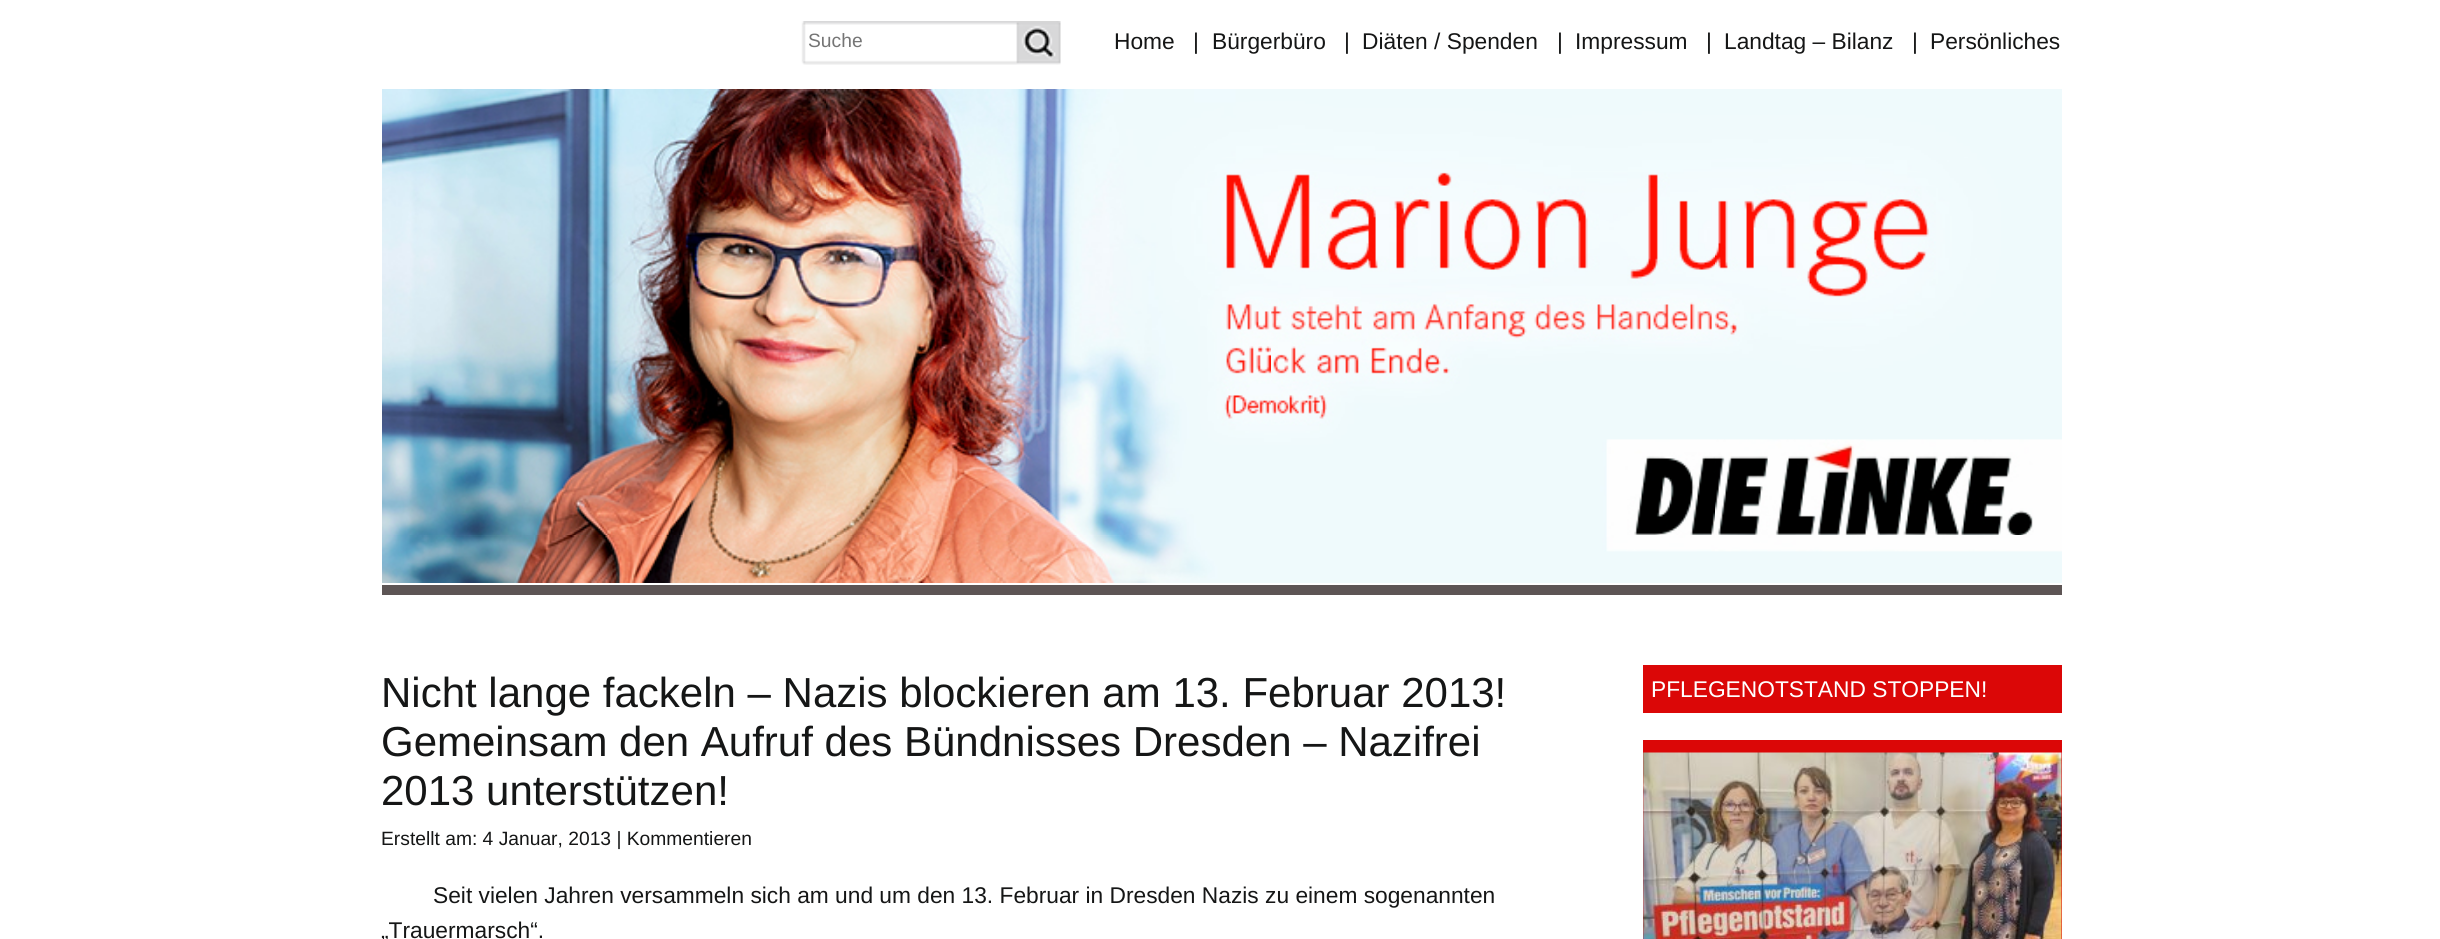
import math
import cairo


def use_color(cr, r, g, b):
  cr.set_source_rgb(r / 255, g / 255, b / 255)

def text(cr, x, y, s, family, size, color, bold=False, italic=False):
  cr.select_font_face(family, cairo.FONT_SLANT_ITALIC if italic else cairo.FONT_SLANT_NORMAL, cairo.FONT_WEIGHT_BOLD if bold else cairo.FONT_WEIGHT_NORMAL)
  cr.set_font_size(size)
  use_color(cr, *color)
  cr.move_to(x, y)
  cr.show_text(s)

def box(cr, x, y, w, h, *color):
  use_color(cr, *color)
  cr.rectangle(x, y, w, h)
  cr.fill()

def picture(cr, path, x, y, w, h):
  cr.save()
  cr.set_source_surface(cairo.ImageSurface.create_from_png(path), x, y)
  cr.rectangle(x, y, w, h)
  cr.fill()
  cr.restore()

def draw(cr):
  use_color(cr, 255, 255, 255)
  cr.paint()
  picture(cr, "img_01.png", 801, 21, 260, 44)
  box(cr, 382, 585, 1680, 10, 93, 85, 85)
  picture(cr, "img_02.png", 382, 89, 1680, 494)
  box(cr, 1643, 665, 419, 48, 219, 7, 7)
  box(cr, 1643, 740, 419, 199, 219, 7, 7)
  picture(cr, "img_03.png", 1643, 752, 419, 187)
  text(cr, 808, 47, "Suche", "Liberation Sans", 19.25, (117, 117, 117))
  text(cr, 1114, 49, "Home", "Liberation Sans", 22.75, (21, 22, 22))
  text(cr, 1193, 49, "|", "Liberation Sans", 22.75, (21, 22, 22))
  text(cr, 1212, 49, "Bürgerbüro", "Liberation Sans", 22.75, (21, 22, 22))
  text(cr, 1344, 49, "|", "Liberation Sans", 22.75, (21, 22, 22))
  text(cr, 1362, 49, "Diäten / Spenden", "Liberation Sans", 22.75, (21, 22, 22))
  text(cr, 1557, 49, "|", "Liberation Sans", 22.75, (21, 22, 22))
  text(cr, 1575, 49, "Impressum", "Liberation Sans", 22.75, (21, 22, 22))
  text(cr, 1706, 49, "|", "Liberation Sans", 22.75, (21, 22, 22))
  text(cr, 1724, 49, "Landtag – Bilanz", "Liberation Sans", 22.75, (21, 22, 22))
  text(cr, 1912, 49, "|", "Liberation Sans", 22.75, (21, 22, 22))
  text(cr, 1930, 49, "Persönliches", "Liberation Sans", 22.75, (21, 22, 22))
  text(cr, 381, 707, "Nicht lange fackeln – Nazis blockieren am 13. Februar 2013!", "Liberation Sans", 42, (21, 22, 22))
  text(cr, 381, 756, "Gemeinsam den Aufruf des Bündnisses Dresden – Nazifrei", "Liberation Sans", 42, (21, 22, 22))
  text(cr, 381, 805, "2013 unterstützen!", "Liberation Sans", 42, (21, 22, 22))
  text(cr, 381, 845, "Erstellt am: 4 Januar, 2013 | Kommentieren", "Liberation Sans", 19.25, (21, 22, 22))
  text(cr, 433, 903, "Seit vielen Jahren versammeln sich am und um den 13. Februar in Dresden Nazis zu einem sogenannten", "Liberation Sans", 22.75, (21, 22, 22))
  text(cr, 381, 938, "„Trauermarsch“.", "Liberation Sans", 22.75, (21, 22, 22))
  text(cr, 1651, 697, "PFLEGENOTSTAND STOPPEN!", "Liberation Sans", 22.75, (255, 255, 255))


surface = cairo.ImageSurface(cairo.FORMAT_RGB24, 2440, 939)
cr = cairo.Context(surface)
options = cairo.FontOptions()
options.set_hint_metrics(cairo.HINT_METRICS_OFF)
options.set_hint_style(cairo.HINT_STYLE_NONE)
cr.set_font_options(options)
cr.set_miter_limit(4)
draw(cr)
surface.write_to_png("out.png")
